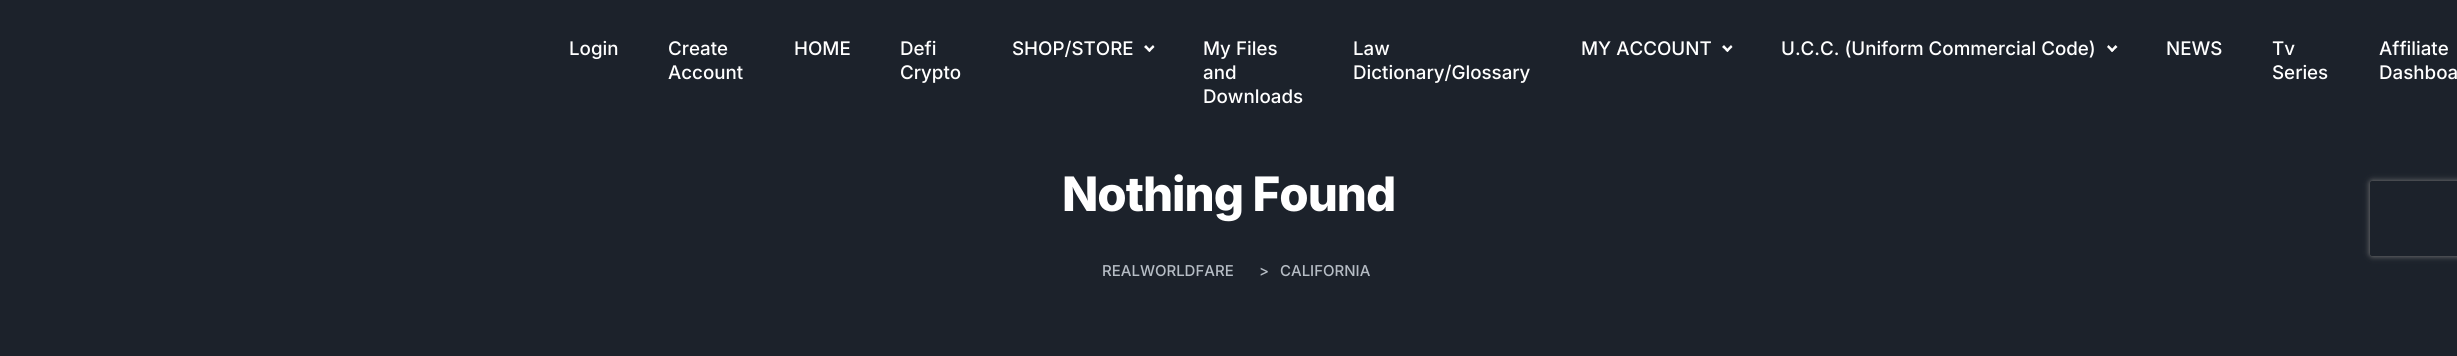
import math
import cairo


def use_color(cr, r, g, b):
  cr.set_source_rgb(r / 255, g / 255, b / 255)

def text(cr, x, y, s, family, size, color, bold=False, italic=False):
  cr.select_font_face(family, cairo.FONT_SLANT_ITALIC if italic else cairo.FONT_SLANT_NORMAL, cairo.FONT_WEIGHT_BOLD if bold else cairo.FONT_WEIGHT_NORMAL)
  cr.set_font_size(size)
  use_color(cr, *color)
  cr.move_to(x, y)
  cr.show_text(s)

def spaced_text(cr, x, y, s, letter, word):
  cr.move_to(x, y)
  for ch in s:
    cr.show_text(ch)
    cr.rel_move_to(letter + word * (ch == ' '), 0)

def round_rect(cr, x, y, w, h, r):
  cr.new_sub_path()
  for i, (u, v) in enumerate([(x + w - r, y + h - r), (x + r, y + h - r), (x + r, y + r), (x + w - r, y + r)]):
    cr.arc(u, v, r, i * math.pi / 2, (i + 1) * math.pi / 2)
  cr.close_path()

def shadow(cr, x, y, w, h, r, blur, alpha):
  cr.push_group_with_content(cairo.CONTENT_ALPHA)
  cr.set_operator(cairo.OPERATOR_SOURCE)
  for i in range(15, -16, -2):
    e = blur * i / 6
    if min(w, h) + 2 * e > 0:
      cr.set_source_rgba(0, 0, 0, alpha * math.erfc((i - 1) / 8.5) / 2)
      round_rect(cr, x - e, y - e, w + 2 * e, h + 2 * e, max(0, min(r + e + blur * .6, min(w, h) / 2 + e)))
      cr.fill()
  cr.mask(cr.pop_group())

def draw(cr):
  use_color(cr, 28, 34, 43)
  cr.paint()
  use_color(cr, 255, 255, 255)
  cr.new_path()
  cr.move_to(1154.5, 47)
  cr.line_to(1149.5, 52)
  cr.line_to(1147.5, 50.5)
  cr.line_to(1153, 45)
  cr.close_path()
  cr.fill()
  cr.new_path()
  cr.move_to(1151, 50.5)
  cr.line_to(1149.5, 52)
  cr.line_to(1144, 47)
  cr.line_to(1146, 45)
  cr.close_path()
  cr.fill()
  cr.new_path()
  cr.move_to(1732.5, 47)
  cr.line_to(1727.5, 52)
  cr.line_to(1725.5, 50.5)
  cr.line_to(1731, 45)
  cr.close_path()
  cr.fill()
  cr.new_path()
  cr.move_to(1729, 50.5)
  cr.line_to(1727.5, 52)
  cr.line_to(1722, 47)
  cr.line_to(1724, 45)
  cr.close_path()
  cr.fill()
  cr.new_path()
  cr.move_to(2117.5, 47)
  cr.line_to(2112, 52)
  cr.line_to(2110.5, 50.5)
  cr.line_to(2115.5, 45)
  cr.close_path()
  cr.fill()
  cr.new_path()
  cr.move_to(2114, 50.5)
  cr.line_to(2112, 52)
  cr.line_to(2107, 47)
  cr.line_to(2108.5, 45)
  cr.close_path()
  cr.fill()
  cr.save()
  cr.set_fill_rule(cairo.FILL_RULE_EVEN_ODD)
  cr.new_path()
  cr.move_to(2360, 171)
  cr.line_to(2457, 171)
  cr.line_to(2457, 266)
  cr.line_to(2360, 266)
  cr.close_path()
  cr.move_to(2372.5, 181)
  cr.line_to(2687.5, 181)
  cr.curve_to(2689, 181, 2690, 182, 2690, 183.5)
  cr.line_to(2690, 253.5)
  cr.curve_to(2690, 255, 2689, 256, 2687.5, 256)
  cr.line_to(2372.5, 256)
  cr.curve_to(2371, 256, 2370, 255, 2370, 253.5)
  cr.line_to(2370, 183.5)
  cr.curve_to(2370, 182, 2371, 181, 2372.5, 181)
  cr.close_path()
  cr.clip()
  use_color(cr, 128, 128, 128)
  shadow(cr, 2370, 181, 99, 75, 2.5, 3, 1)
  cr.restore()
  text(cr, 569, 55, "Login", "Inter Medium", 18.75, (255, 255, 255))
  text(cr, 668, 55, "Create", "Inter Medium", 18.75, (255, 255, 255))
  text(cr, 668, 79, "Account", "Inter Medium", 18.75, (255, 255, 255))
  text(cr, 794, 55, "HOME", "Inter Medium", 18.75, (255, 255, 255))
  text(cr, 900, 55, "Defi", "Inter Medium", 18.75, (255, 255, 255))
  text(cr, 900, 79, "Crypto", "Inter Medium", 18.75, (255, 255, 255))
  text(cr, 1012, 55, "SHOP/STORE", "Inter Medium", 18.75, (255, 255, 255))
  text(cr, 1203, 55, "My Files", "Inter Medium", 18.75, (255, 255, 255))
  text(cr, 1203, 79, "and", "Inter Medium", 18.75, (255, 255, 255))
  text(cr, 1203, 103, "Downloads", "Inter Medium", 18.75, (255, 255, 255))
  text(cr, 1353, 55, "Law", "Inter Medium", 18.75, (255, 255, 255))
  text(cr, 1353, 79, "Dictionary/Glossary", "Inter Medium", 18.75, (255, 255, 255))
  text(cr, 1581, 55, "MY ACCOUNT", "Inter Medium", 18.75, (255, 255, 255))
  text(cr, 1781, 55, "U.C.C. (Uniform Commercial Code)", "Inter Medium", 18.75, (255, 255, 255))
  text(cr, 2166, 55, "NEWS", "Inter Medium", 18.75, (255, 255, 255))
  text(cr, 2272, 55, "Tv", "Inter Medium", 18.75, (255, 255, 255))
  text(cr, 2272, 79, "Series", "Inter Medium", 18.75, (255, 255, 255))
  text(cr, 2379, 55, "Affiliate", "Inter Medium", 18.75, (255, 255, 255))
  text(cr, 2379, 79, "Dashboa", "Inter Medium", 18.75, (255, 255, 255))
  cr.select_font_face("Inter ExtraBold")
  cr.set_font_size(47.5)
  spaced_text(cr, 1062, 211, "Nothing Found", -1, 0)
  text(cr, 1102, 276, "REALWORLDFARE", "Inter Medium", 15, (182, 189, 197))
  text(cr, 1259, 276, ">", "Inter Medium", 15, (182, 189, 197))
  text(cr, 1280, 276, "CALIFORNIA", "Inter Medium", 15, (182, 189, 197))


surface = cairo.ImageSurface(cairo.FORMAT_RGB24, 2457, 356)
cr = cairo.Context(surface)
options = cairo.FontOptions()
options.set_hint_metrics(cairo.HINT_METRICS_OFF)
options.set_hint_style(cairo.HINT_STYLE_NONE)
cr.set_font_options(options)
cr.set_miter_limit(4)
draw(cr)
surface.write_to_png("out.png")
